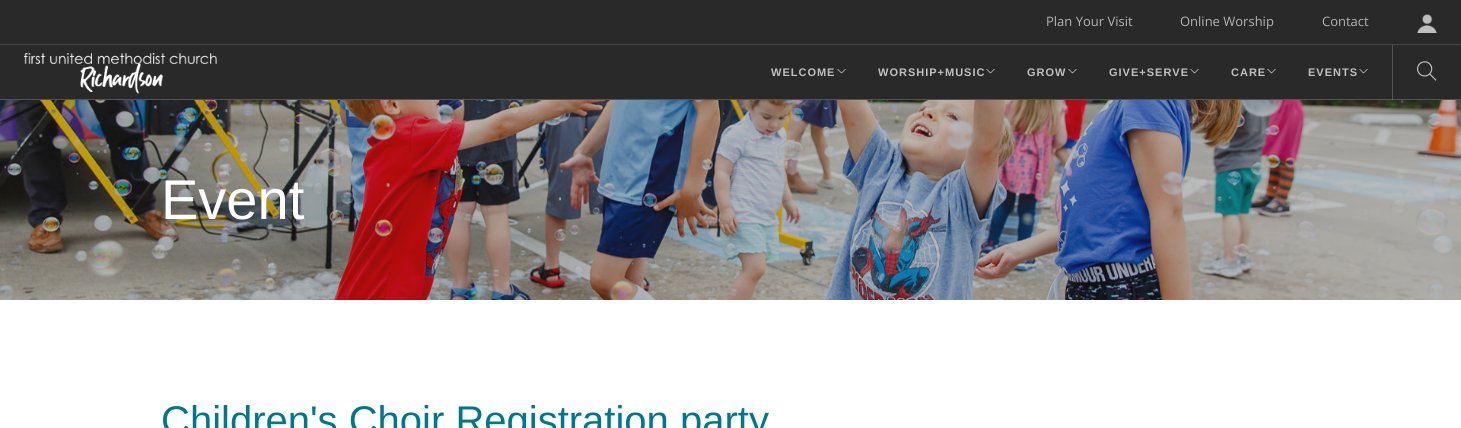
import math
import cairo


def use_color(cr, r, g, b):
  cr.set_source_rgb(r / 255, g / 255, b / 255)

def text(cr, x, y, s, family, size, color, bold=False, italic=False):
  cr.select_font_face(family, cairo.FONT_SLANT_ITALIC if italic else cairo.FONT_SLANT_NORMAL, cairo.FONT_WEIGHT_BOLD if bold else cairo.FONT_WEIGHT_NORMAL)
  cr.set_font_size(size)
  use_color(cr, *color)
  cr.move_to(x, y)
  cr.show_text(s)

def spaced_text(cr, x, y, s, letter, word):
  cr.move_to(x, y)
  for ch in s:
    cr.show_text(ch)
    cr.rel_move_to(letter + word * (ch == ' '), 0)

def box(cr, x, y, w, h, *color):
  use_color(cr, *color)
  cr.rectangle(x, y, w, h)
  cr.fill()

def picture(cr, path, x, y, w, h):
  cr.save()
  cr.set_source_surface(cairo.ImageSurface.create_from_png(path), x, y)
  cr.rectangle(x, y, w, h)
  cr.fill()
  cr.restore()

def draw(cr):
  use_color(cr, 255, 255, 255)
  cr.paint()
  box(cr, 0, 0, 1461, 99, 41, 41, 41)
  box(cr, 1392, 45, 1, 55, 84, 84, 84)
  box(cr, 0, 44, 1461, 1, 71, 71, 71)
  picture(cr, "img_01.png", 1417, 14, 20, 19)
  box(cr, 0, 99, 1461, 1, 84, 84, 84)
  box(cr, 1392, 99, 1, 1, 118, 118, 118)
  picture(cr, "img_02.png", 24, 53, 193, 41)
  picture(cr, "img_03.png", 837, 69, 9, 5)
  picture(cr, "img_03.png", 986, 69, 9, 5)
  picture(cr, "img_03.png", 1068, 69, 9, 5)
  picture(cr, "img_03.png", 1190, 69, 9, 5)
  picture(cr, "img_03.png", 1267, 69, 9, 5)
  picture(cr, "img_03.png", 1359, 69, 9, 5)
  picture(cr, "img_04.png", 1417, 61, 20, 20)
  picture(cr, "img_05.png", 0, 100, 1461, 200)
  text(cr, 1046, 26, "Plan Your Visit", "Open Sans", 13, (179, 179, 179))
  text(cr, 1180, 26, "Online Worship", "Open Sans", 13, (179, 179, 179))
  text(cr, 1322, 26, "Contact", "Open Sans", 13, (179, 179, 179))
  cr.select_font_face("Liberation Sans", cairo.FONT_SLANT_NORMAL, cairo.FONT_WEIGHT_BOLD)
  cr.set_font_size(11)
  use_color(cr, 191, 191, 191)
  spaced_text(cr, 771, 76, "WELCOME", 1, 0)
  spaced_text(cr, 878, 76, "WORSHIP+MUSIC", 1, 0)
  spaced_text(cr, 1027, 76, "GROW", 1, 0)
  spaced_text(cr, 1109, 76, "GIVE+SERVE", 1, 0)
  spaced_text(cr, 1231, 76, "CARE", 1, 0)
  spaced_text(cr, 1308, 76, "EVENTS", 1, 0)
  text(cr, 161, 219, "Event", "Liberation Sans", 56, (255, 255, 255))
  text(cr, 161, 434, "Children's Choir Registration party", "Liberation Sans", 40, (0, 119, 139))


surface = cairo.ImageSurface(cairo.FORMAT_RGB24, 1461, 428)
cr = cairo.Context(surface)
options = cairo.FontOptions()
options.set_hint_metrics(cairo.HINT_METRICS_OFF)
options.set_hint_style(cairo.HINT_STYLE_NONE)
cr.set_font_options(options)
cr.set_miter_limit(4)
draw(cr)
surface.write_to_png("out.png")
